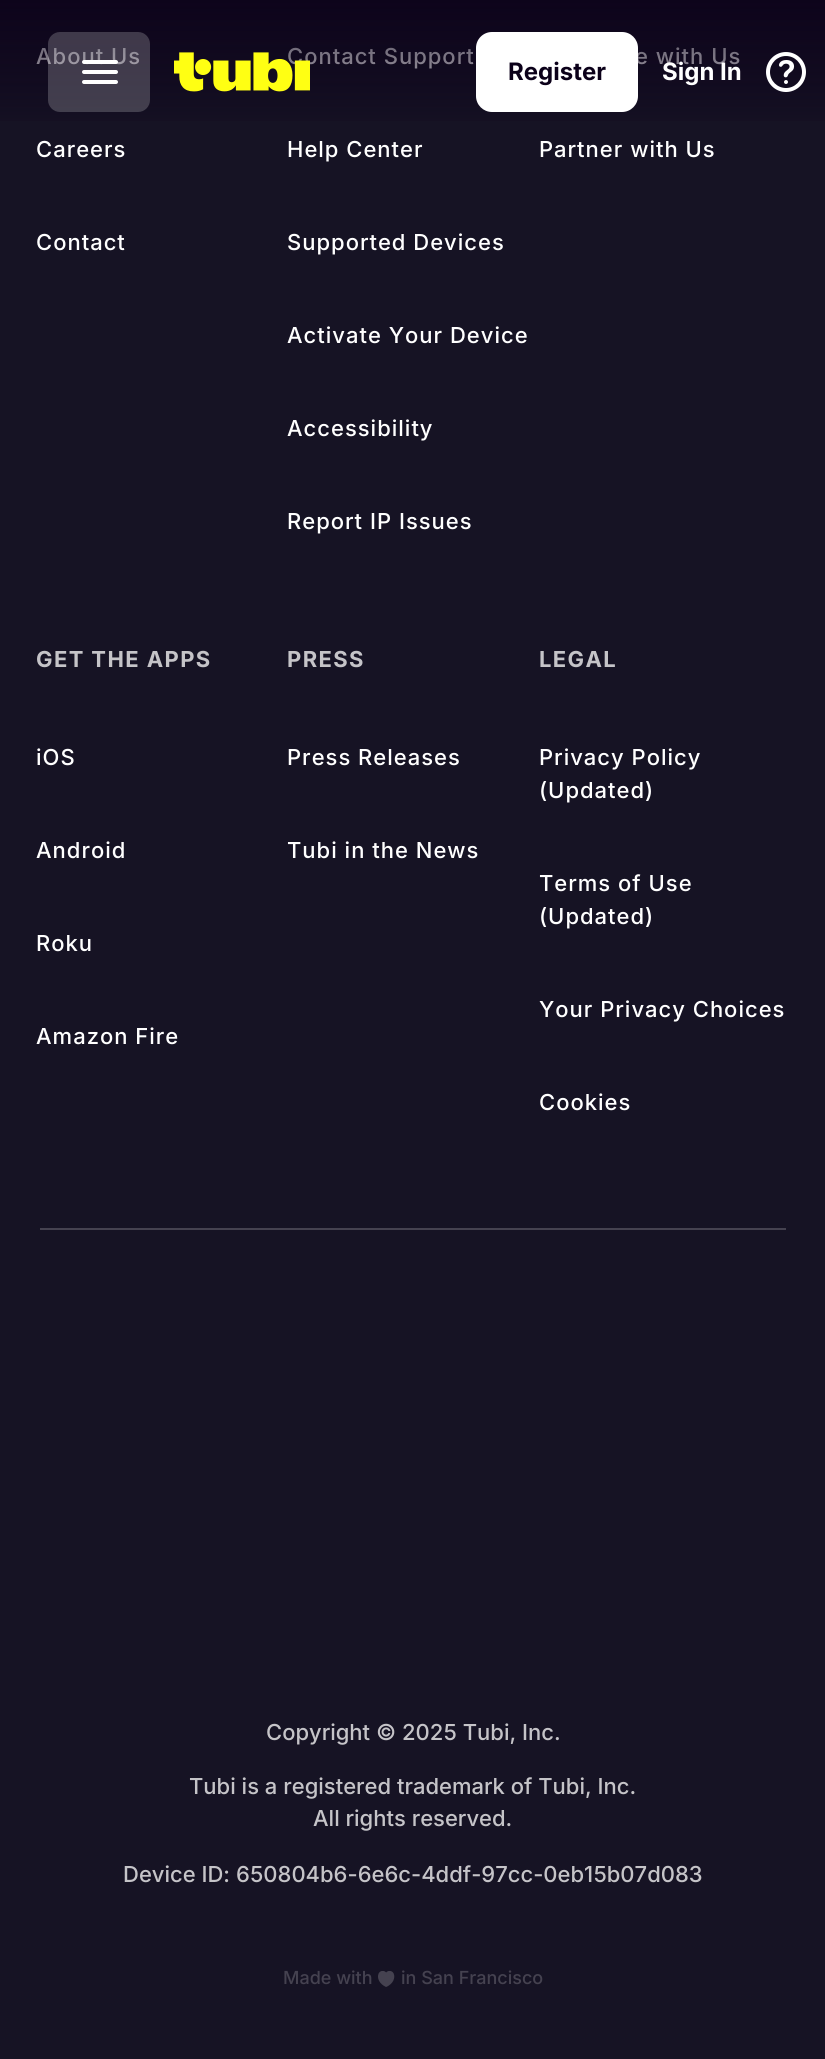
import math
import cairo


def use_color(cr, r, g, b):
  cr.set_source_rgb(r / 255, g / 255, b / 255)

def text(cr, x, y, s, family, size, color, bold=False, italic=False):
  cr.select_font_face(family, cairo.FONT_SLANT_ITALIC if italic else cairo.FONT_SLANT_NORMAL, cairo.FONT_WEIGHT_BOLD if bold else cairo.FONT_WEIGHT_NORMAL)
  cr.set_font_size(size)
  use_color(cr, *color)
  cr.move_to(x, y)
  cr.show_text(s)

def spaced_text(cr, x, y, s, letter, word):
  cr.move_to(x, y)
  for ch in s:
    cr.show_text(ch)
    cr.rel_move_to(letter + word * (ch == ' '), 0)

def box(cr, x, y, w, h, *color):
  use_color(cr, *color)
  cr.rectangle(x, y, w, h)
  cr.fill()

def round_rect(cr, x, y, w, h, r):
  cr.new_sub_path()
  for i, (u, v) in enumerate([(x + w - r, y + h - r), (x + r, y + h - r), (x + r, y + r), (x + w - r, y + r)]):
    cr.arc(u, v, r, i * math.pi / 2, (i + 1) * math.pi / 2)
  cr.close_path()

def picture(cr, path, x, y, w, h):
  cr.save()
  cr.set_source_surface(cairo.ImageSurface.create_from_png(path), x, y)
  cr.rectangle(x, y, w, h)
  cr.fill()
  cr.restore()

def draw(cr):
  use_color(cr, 22, 19, 36)
  cr.paint()
  box(cr, 40, 1228, 746, 2, 69, 66, 80)
  picture(cr, "img_01.png", 378, 1971, 17, 16)
  cr.select_font_face("Inter Medium")
  cr.set_font_size(22)
  use_color(cr, 255, 255, 255)
  spaced_text(cr, 36, 64, "About Us", 1, 0)
  spaced_text(cr, 36, 157, "Careers", 1, 0)
  spaced_text(cr, 36, 250, "Contact", 1, 0)
  spaced_text(cr, 287, 64, "Contact Support", 1, 0)
  spaced_text(cr, 287, 157, "Help Center", 1, 0)
  spaced_text(cr, 287, 250, "Supported Devices", 1, 0)
  spaced_text(cr, 287, 343, "Activate Your Device", 1, 0)
  spaced_text(cr, 287, 436, "Accessibility", 1, 0)
  spaced_text(cr, 287, 529, "Report IP Issues", 1, 0)
  spaced_text(cr, 635, 64, "e with Us", 1, 0)
  spaced_text(cr, 539, 157, "Partner with Us", 1, 0)
  cr.select_font_face("Inter", cairo.FONT_SLANT_NORMAL, cairo.FONT_WEIGHT_BOLD)
  use_color(cr, 197, 196, 200)
  spaced_text(cr, 36, 667, "GET THE APPS", 1.4, 0)
  cr.select_font_face("Inter Medium")
  use_color(cr, 255, 255, 255)
  spaced_text(cr, 36, 765, "iOS", 1, 0)
  spaced_text(cr, 36, 858, "Android", 1, 0)
  spaced_text(cr, 36, 951, "Roku", 1, 0)
  spaced_text(cr, 36, 1044, "Amazon Fire", 1, 0)
  cr.select_font_face("Inter", cairo.FONT_SLANT_NORMAL, cairo.FONT_WEIGHT_BOLD)
  use_color(cr, 197, 196, 200)
  spaced_text(cr, 287, 667, "PRESS", 1.4, 0)
  cr.select_font_face("Inter Medium")
  use_color(cr, 255, 255, 255)
  spaced_text(cr, 287, 765, "Press Releases", 1, 0)
  spaced_text(cr, 287, 858, "Tubi in the News", 1, 0)
  cr.select_font_face("Inter", cairo.FONT_SLANT_NORMAL, cairo.FONT_WEIGHT_BOLD)
  use_color(cr, 197, 196, 200)
  spaced_text(cr, 539, 667, "LEGAL", 1.4, 0)
  cr.select_font_face("Inter Medium")
  use_color(cr, 255, 255, 255)
  spaced_text(cr, 539, 765, "Privacy Policy", 1, 0)
  spaced_text(cr, 539, 798, "(Updated)", 1, 0)
  spaced_text(cr, 539, 891, "Terms of Use", 1, 0)
  spaced_text(cr, 539, 924, "(Updated)", 1, 0)
  spaced_text(cr, 539, 1017, "Your Privacy Choices", 1, 0)
  spaced_text(cr, 539, 1110, "Cookies", 1, 0)
  text(cr, 266, 1740, "Copyright © 2025 Tubi, Inc.", "Inter Medium", 22, (197, 196, 200))
  text(cr, 189, 1794, "Tubi is a registered trademark of Tubi, Inc.", "Inter Medium", 22, (197, 196, 200))
  text(cr, 313, 1826, "All rights reserved.", "Inter Medium", 22, (197, 196, 200))
  text(cr, 123, 1882, "Device ID: 650804b6-6e6c-4ddf-97cc-0eb15b07d083", "Inter Medium", 22, (197, 196, 200))
  text(cr, 283, 1984, "Made with", "Inter Medium", 18, (69, 66, 80))
  text(cr, 401, 1984, "in San Francisco", "Inter Medium", 18, (69, 66, 80))
  gradient = cairo.LinearGradient(413, 0, 413, 144)
  gradient.add_color_stop_rgba(0.01, 0.043, 0, 0.098, 0.8)
  gradient.add_color_stop_rgba(0.59, 0.043, 0, 0.098, 0.4)
  gradient.add_color_stop_rgba(0.78, 0.043, 0, 0.098, 0.2)
  gradient.add_color_stop_rgba(0.96, 0.043, 0, 0.098, 0)
  cr.set_source(gradient)
  cr.rectangle(0, 0, 825, 121)
  cr.fill()
  cr.set_source_rgba(1, 1, 1, 0.2)
  round_rect(cr, 48, 32, 102, 80, 12)
  cr.fill()
  picture(cr, "img_02.png", 82, 60, 36, 24)
  picture(cr, "img_03.png", 174, 52, 136, 40)
  use_color(cr, 255, 255, 255)
  round_rect(cr, 476, 32, 162, 80, 16)
  cr.fill()
  text(cr, 508, 80, "Register", "Inter", 24, (11, 0, 25), bold=True)
  text(cr, 662, 80, "Sign In", "Inter", 24, (255, 255, 255), bold=True)
  picture(cr, "img_04.png", 766, 52, 40, 40)


surface = cairo.ImageSurface(cairo.FORMAT_RGB24, 825, 2059)
cr = cairo.Context(surface)
options = cairo.FontOptions()
options.set_hint_metrics(cairo.HINT_METRICS_OFF)
options.set_hint_style(cairo.HINT_STYLE_NONE)
cr.set_font_options(options)
cr.set_miter_limit(4)
draw(cr)
surface.write_to_png("out.png")
